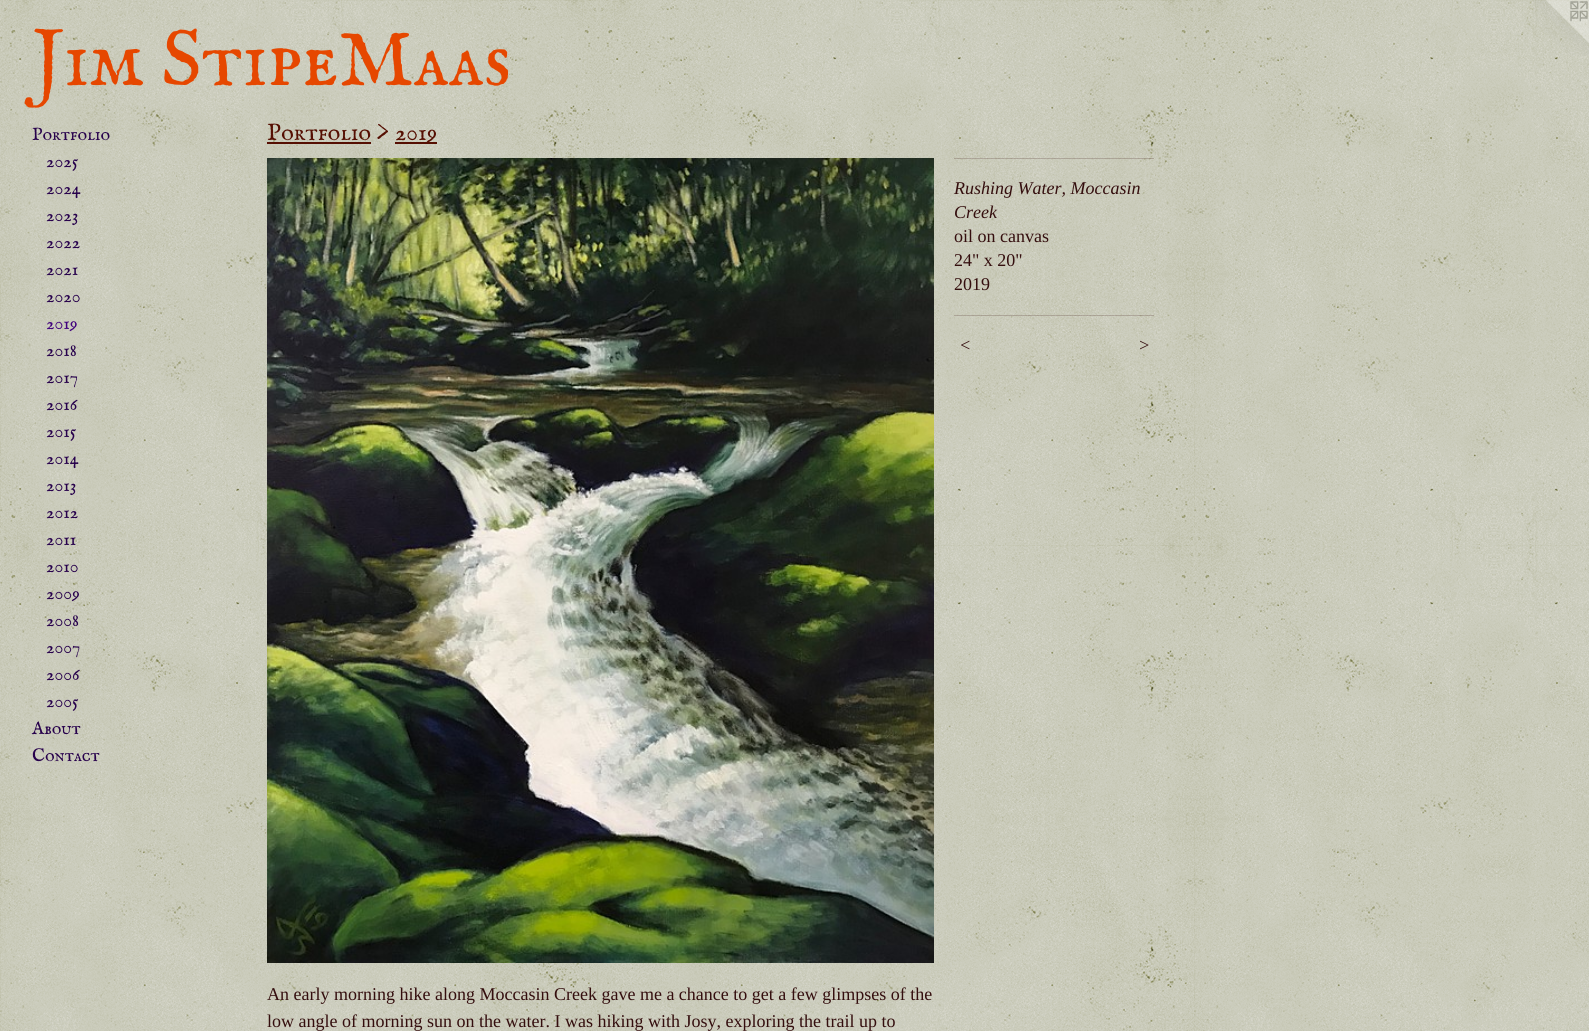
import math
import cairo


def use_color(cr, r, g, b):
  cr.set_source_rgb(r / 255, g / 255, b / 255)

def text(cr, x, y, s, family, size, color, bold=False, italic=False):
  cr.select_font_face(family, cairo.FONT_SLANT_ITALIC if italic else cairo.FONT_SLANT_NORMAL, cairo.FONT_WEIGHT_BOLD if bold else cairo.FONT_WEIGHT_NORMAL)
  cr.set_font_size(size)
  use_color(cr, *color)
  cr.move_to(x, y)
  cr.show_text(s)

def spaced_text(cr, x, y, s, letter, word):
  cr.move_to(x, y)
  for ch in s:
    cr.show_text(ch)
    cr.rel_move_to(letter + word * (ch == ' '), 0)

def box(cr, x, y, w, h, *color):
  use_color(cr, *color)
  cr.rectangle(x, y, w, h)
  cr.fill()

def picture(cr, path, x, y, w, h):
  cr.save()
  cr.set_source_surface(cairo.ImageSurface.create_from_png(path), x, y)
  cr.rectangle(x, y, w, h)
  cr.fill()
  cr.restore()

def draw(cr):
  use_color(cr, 255, 255, 255)
  cr.paint()
  picture(cr, "img_01.png", 0, 0, 1589, 1031)
  picture(cr, "img_02.png", 1533, 0, 56, 56)
  box(cr, 267, 142, 104, 2, 85, 15, 2)
  box(cr, 395, 142, 42, 2, 85, 15, 2)
  picture(cr, "img_03.png", 267, 158, 667, 805)
  cr.set_source_rgba(0.204, 0.055, 0.055, 0.2)
  cr.rectangle(954, 158, 200, 1)
  cr.fill()
  cr.rectangle(954, 315, 200, 1)
  cr.fill()
  text(cr, 32, 85, "Jim StipeMaas", "IM FELL English SC", 80, (230, 71, 0))
  text(cr, 32, 140, "Portfolio", "IM FELL English SC", 18, (39, 1, 76))
  text(cr, 46, 167, "2025", "IM FELL English SC", 18, (39, 1, 76))
  text(cr, 46, 194, "2024", "IM FELL English SC", 18, (39, 1, 76))
  text(cr, 46, 221, "2023", "IM FELL English SC", 18, (39, 1, 76))
  text(cr, 46, 248, "2022", "IM FELL English SC", 18, (39, 1, 76))
  text(cr, 46, 275, "2021", "IM FELL English SC", 18, (39, 1, 76))
  text(cr, 46, 302, "2020", "IM FELL English SC", 18, (39, 1, 76))
  text(cr, 46, 329, "2019", "IM FELL English SC", 18, (65, 2, 126))
  text(cr, 46, 356, "2018", "IM FELL English SC", 18, (39, 1, 76))
  text(cr, 46, 383, "2017", "IM FELL English SC", 18, (39, 1, 76))
  text(cr, 46, 410, "2016", "IM FELL English SC", 18, (39, 1, 76))
  text(cr, 46, 437, "2015", "IM FELL English SC", 18, (39, 1, 76))
  text(cr, 46, 464, "2014", "IM FELL English SC", 18, (39, 1, 76))
  text(cr, 46, 491, "2013", "IM FELL English SC", 18, (39, 1, 76))
  text(cr, 46, 518, "2012", "IM FELL English SC", 18, (39, 1, 76))
  text(cr, 46, 545, "2011", "IM FELL English SC", 18, (39, 1, 76))
  text(cr, 46, 572, "2010", "IM FELL English SC", 18, (39, 1, 76))
  text(cr, 46, 599, "2009", "IM FELL English SC", 18, (39, 1, 76))
  text(cr, 46, 626, "2008", "IM FELL English SC", 18, (39, 1, 76))
  text(cr, 46, 653, "2007", "IM FELL English SC", 18, (39, 1, 76))
  text(cr, 46, 680, "2006", "IM FELL English SC", 18, (39, 1, 76))
  text(cr, 46, 707, "2005", "IM FELL English SC", 18, (39, 1, 76))
  text(cr, 32, 734, "About", "IM FELL English SC", 18, (39, 1, 76))
  text(cr, 32, 761, "Contact", "IM FELL English SC", 18, (39, 1, 76))
  text(cr, 267, 140, "Portfolio >", "IM FELL English SC", 24, (85, 15, 2))
  text(cr, 395, 140, "2019", "IM FELL English SC", 24, (85, 15, 2))
  text(cr, 954, 194, "Rushing Water, Moccasin", "Liberation Serif", 18, (52, 14, 14), italic=True)
  text(cr, 954, 218, "Creek", "Liberation Serif", 18, (52, 14, 14), italic=True)
  text(cr, 954, 242, "oil on canvas", "Liberation Serif", 18, (52, 14, 14))
  text(cr, 954, 266, "24\" x 20\"", "Liberation Serif", 18, (52, 14, 14))
  text(cr, 954, 290, "2019", "Liberation Serif", 18, (52, 14, 14))
  cr.select_font_face("Liberation Serif", cairo.FONT_SLANT_ITALIC)
  spaced_text(cr, 959, 351, "<", 1, 0)
  spaced_text(cr, 1138, 351, ">", 1, 0)
  text(cr, 267, 1000, "An early morning hike along Moccasin Creek gave me a chance to get a few glimpses of the", "Liberation Serif", 18, (52, 14, 14))
  text(cr, 267, 1027, "low angle of morning sun on the water. I was hiking with Josy, exploring the trail up to", "Liberation Serif", 18, (52, 14, 14))


surface = cairo.ImageSurface(cairo.FORMAT_RGB24, 1589, 1031)
cr = cairo.Context(surface)
options = cairo.FontOptions()
options.set_hint_metrics(cairo.HINT_METRICS_OFF)
options.set_hint_style(cairo.HINT_STYLE_NONE)
cr.set_font_options(options)
cr.set_miter_limit(4)
draw(cr)
surface.write_to_png("out.png")
